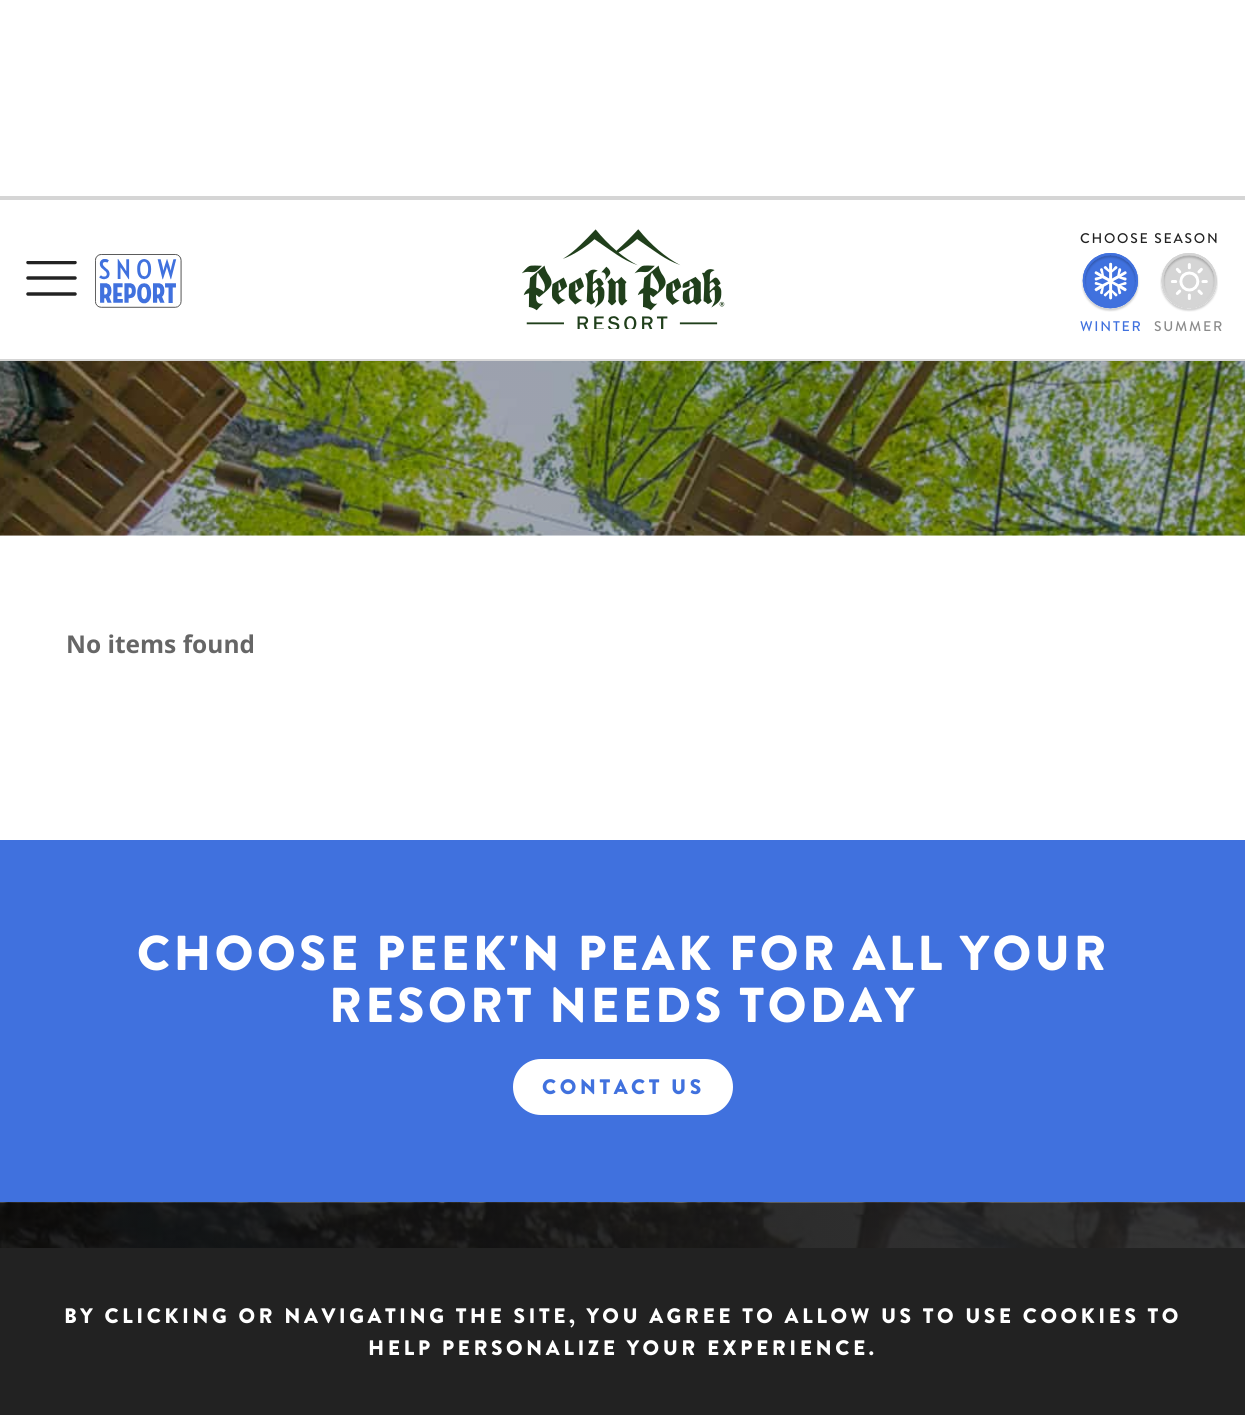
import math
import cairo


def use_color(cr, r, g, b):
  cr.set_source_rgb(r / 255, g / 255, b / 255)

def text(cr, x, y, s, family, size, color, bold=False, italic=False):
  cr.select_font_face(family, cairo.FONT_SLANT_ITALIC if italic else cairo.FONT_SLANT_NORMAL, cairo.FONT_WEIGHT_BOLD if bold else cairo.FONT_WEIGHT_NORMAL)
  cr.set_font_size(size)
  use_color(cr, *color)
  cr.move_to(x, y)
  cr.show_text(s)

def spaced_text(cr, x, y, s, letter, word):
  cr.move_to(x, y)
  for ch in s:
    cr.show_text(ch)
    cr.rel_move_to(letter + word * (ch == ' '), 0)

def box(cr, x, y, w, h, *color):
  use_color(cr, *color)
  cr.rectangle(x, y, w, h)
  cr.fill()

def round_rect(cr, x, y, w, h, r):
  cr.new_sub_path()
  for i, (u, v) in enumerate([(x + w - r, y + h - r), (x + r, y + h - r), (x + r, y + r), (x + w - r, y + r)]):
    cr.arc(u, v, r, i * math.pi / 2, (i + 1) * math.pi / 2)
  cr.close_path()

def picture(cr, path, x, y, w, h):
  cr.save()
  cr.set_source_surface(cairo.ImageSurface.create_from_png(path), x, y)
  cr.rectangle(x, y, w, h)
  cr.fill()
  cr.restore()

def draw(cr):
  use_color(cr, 255, 255, 255)
  cr.paint()
  box(cr, 0, 196, 1245, 4, 213, 213, 213)
  box(cr, 0, 359, 1245, 2, 213, 213, 213)
  cr.save()
  cr.rectangle(26, 261, 51, 35)
  cr.clip()
  cr.new_path()
  cr.move_to(28, 262.5)
  cr.line_to(75, 262.5)
  use_color(cr, 34, 34, 34)
  cr.set_line_width(3.5)
  cr.set_line_cap(cairo.LINE_CAP_ROUND)
  cr.stroke()
  cr.restore()
  cr.new_path()
  cr.move_to(28, 278)
  cr.line_to(75, 278)
  use_color(cr, 34, 34, 34)
  cr.set_line_width(3.5)
  cr.set_line_cap(cairo.LINE_CAP_ROUND)
  cr.stroke()
  cr.new_path()
  cr.move_to(28, 294)
  cr.line_to(75, 294)
  cr.stroke()
  picture(cr, "img_01.png", 95, 254, 87, 54)
  picture(cr, "img_02.png", 522, 229, 203, 100)
  picture(cr, "img_03.png", 1081, 253, 59, 59)
  picture(cr, "img_04.png", 1160, 253, 58, 59)
  picture(cr, "img_05.png", 0, 361, 1245, 175)
  box(cr, 0, 840, 1245, 362, 64, 113, 222)
  use_color(cr, 255, 255, 255)
  round_rect(cr, 515, 1061, 216, 52, 26)
  cr.fill_preserve()
  cr.set_line_width(4)
  cr.set_line_cap(cairo.LINE_CAP_BUTT)
  cr.stroke()
  picture(cr, "img_06.png", 0, 1202, 1245, 46)
  box(cr, 0, 1248, 1245, 167, 34, 34, 34)
  cr.select_font_face("Brandon Grotesque Medium")
  cr.set_font_size(14)
  spaced_text(cr, 1080, 243, "CHOOSE SEASON", 1.75, 0)
  use_color(cr, 64, 113, 222)
  spaced_text(cr, 1080, 331, "WINTER", 1.75, 0)
  use_color(cr, 139, 139, 139)
  spaced_text(cr, 1154, 331, "SUMMER", 1.75, 0)
  text(cr, 66, 653, "No items found", "Open Sans", 24.5, (102, 102, 102), bold=True)
  cr.select_font_face("Brandon Grotesque Black")
  cr.set_font_size(49)
  use_color(cr, 255, 255, 255)
  spaced_text(cr, 137, 970, "CHOOSE PEEK'N PEAK FOR ALL YOUR", 3.5, 0)
  spaced_text(cr, 329, 1022, "RESORT NEEDS TODAY", 3.5, 0)
  cr.set_font_size(21)
  use_color(cr, 64, 113, 222)
  spaced_text(cr, 542, 1094, "CONTACT US", 3.5, 0)
  use_color(cr, 255, 255, 255)
  spaced_text(cr, 64, 1323, "BY CLICKING OR NAVIGATING THE SITE, YOU AGREE TO ALLOW US TO USE COOKIES TO", 3.5, 0)
  spaced_text(cr, 368, 1355, "HELP PERSONALIZE YOUR EXPERIENCE.", 3.5, 0)


surface = cairo.ImageSurface(cairo.FORMAT_RGB24, 1245, 1415)
cr = cairo.Context(surface)
options = cairo.FontOptions()
options.set_hint_metrics(cairo.HINT_METRICS_OFF)
options.set_hint_style(cairo.HINT_STYLE_NONE)
cr.set_font_options(options)
cr.set_miter_limit(4)
draw(cr)
surface.write_to_png("out.png")
